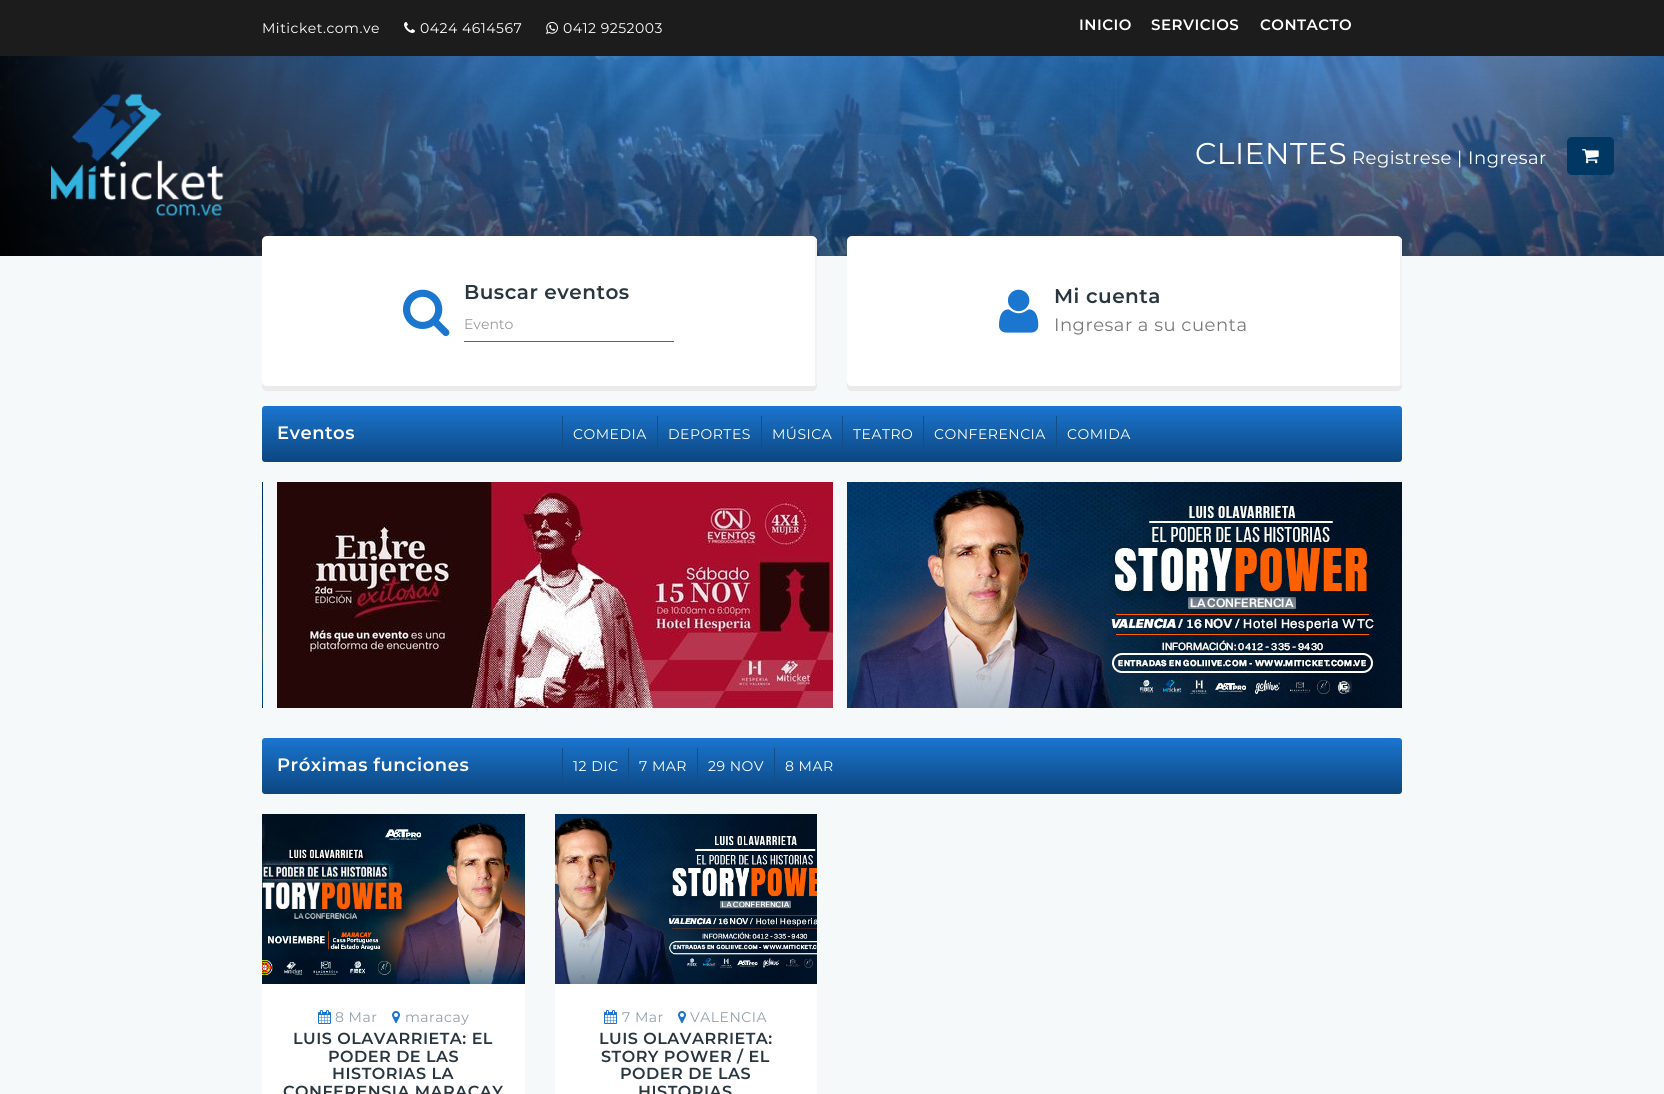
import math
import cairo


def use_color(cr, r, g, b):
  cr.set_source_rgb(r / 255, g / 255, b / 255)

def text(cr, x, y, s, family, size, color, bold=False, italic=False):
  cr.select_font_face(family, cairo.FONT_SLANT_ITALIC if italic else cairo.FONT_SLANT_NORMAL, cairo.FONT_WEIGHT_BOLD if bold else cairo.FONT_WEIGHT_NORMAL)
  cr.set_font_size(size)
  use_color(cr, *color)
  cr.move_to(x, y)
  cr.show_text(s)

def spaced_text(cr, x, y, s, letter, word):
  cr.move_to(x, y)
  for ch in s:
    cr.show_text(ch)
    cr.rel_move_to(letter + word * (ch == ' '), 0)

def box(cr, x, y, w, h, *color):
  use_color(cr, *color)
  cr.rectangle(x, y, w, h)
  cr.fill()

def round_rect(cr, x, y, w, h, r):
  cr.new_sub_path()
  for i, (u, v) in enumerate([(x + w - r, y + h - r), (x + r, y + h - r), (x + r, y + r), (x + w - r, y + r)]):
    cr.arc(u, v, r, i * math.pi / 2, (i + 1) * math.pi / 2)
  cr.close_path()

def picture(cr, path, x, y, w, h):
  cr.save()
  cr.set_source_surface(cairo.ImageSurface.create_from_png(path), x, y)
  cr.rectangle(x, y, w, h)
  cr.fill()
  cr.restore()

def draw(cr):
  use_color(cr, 246, 249, 249)
  cr.paint()
  box(cr, 0, 0, 1664, 56, 29, 28, 28)
  picture(cr, "img_01.png", 404, 22, 11, 11)
  picture(cr, "img_02.png", 546, 22, 12, 12)
  picture(cr, "img_03.png", 0, 56, 1664, 200)
  picture(cr, "img_04.png", 51, 93, 173, 124)
  use_color(cr, 0, 55, 99)
  round_rect(cr, 1567, 137, 47, 38, 5)
  cr.fill()
  picture(cr, "img_05.png", 1582, 149, 17, 15)
  use_color(cr, 234, 234, 234)
  cr.new_path()
  cr.move_to(262, 381)
  cr.line_to(262, 386)
  cr.curve_to(262, 389, 264, 391, 267, 391)
  cr.line_to(812, 391)
  cr.curve_to(815, 391, 817, 389, 817, 386)
  cr.line_to(817, 381)
  cr.curve_to(817, 384, 815, 386, 812, 386)
  cr.line_to(267, 386)
  cr.curve_to(264, 386, 262, 384, 262, 381)
  cr.close_path()
  cr.fill()
  use_color(cr, 255, 255, 255)
  round_rect(cr, 262, 236, 555, 150, 5)
  cr.fill()
  box(cr, 815, 239, 2, 145, 242, 242, 242)
  picture(cr, "img_06.png", 403, 289, 47, 48)
  box(cr, 464, 341, 210, 1, 27, 118, 207)
  use_color(cr, 234, 234, 234)
  cr.new_path()
  cr.move_to(847, 381)
  cr.line_to(847, 386)
  cr.curve_to(847, 389, 849, 391, 852, 391)
  cr.line_to(1397, 391)
  cr.curve_to(1400, 391, 1402, 389, 1402, 386)
  cr.line_to(1402, 381)
  cr.curve_to(1402, 384, 1400, 386, 1397, 386)
  cr.line_to(852, 386)
  cr.curve_to(849, 386, 847, 384, 847, 381)
  cr.close_path()
  cr.fill()
  use_color(cr, 255, 255, 255)
  round_rect(cr, 847, 236, 555, 150, 5)
  cr.fill()
  box(cr, 1400, 239, 2, 145, 242, 242, 242)
  picture(cr, "img_07.png", 999, 289, 40, 44)
  gradient = cairo.LinearGradient(832, 406, 832, 462)
  gradient.add_color_stop_rgba(0, 0.106, 0.459, 0.812, 1)
  gradient.add_color_stop_rgba(1, 0.047, 0.275, 0.502, 1)
  cr.set_source(gradient)
  round_rect(cr, 262, 406, 1140, 56, 3)
  cr.fill()
  box(cr, 562, 416, 1, 36, 18, 78, 138)
  box(cr, 657, 416, 1, 36, 18, 78, 138)
  box(cr, 761, 416, 1, 36, 18, 78, 138)
  box(cr, 842, 416, 1, 36, 18, 78, 138)
  box(cr, 923, 416, 1, 36, 18, 78, 138)
  box(cr, 1056, 416, 1, 36, 18, 78, 138)
  picture(cr, "img_08.png", 262, 482, 1, 226)
  picture(cr, "img_09.png", 277, 482, 556, 226)
  picture(cr, "img_10.png", 847, 482, 555, 226)
  gradient = cairo.LinearGradient(832, 738, 832, 794)
  gradient.add_color_stop_rgba(0, 0.106, 0.459, 0.812, 1)
  gradient.add_color_stop_rgba(1, 0.047, 0.275, 0.502, 1)
  cr.set_source(gradient)
  round_rect(cr, 262, 738, 1140, 56, 3)
  cr.fill()
  box(cr, 562, 748, 1, 36, 18, 78, 138)
  box(cr, 628, 748, 1, 36, 18, 78, 138)
  box(cr, 697, 748, 1, 36, 18, 78, 138)
  box(cr, 774, 748, 1, 36, 18, 78, 138)
  picture(cr, "img_11.png", 262, 814, 263, 170)
  box(cr, 262, 984, 263, 110, 255, 255, 255)
  picture(cr, "img_12.png", 318, 1010, 13, 14)
  picture(cr, "img_13.png", 392, 1011, 8, 12)
  picture(cr, "img_14.png", 555, 814, 262, 170)
  box(cr, 555, 984, 262, 110, 255, 255, 255)
  picture(cr, "img_12.png", 604, 1010, 13, 14)
  picture(cr, "img_13.png", 678, 1011, 8, 12)
  cr.select_font_face("Montserrat")
  cr.set_font_size(14)
  spaced_text(cr, 262, 33, "Miticket.com.ve", 0.5, 0)
  spaced_text(cr, 420, 33, "0424 4614567", 0.5, 0)
  spaced_text(cr, 563, 33, "0412 9252003", 0.5, 0)
  cr.select_font_face("Montserrat SemiBold")
  cr.set_font_size(15)
  spaced_text(cr, 1079, 30, "INICIO", 0.5, 0)
  spaced_text(cr, 1151, 30, "SERVICIOS", 0.5, 0)
  spaced_text(cr, 1260, 30, "CONTACTO", 0.5, 0)
  cr.select_font_face("Montserrat")
  cr.set_font_size(30)
  spaced_text(cr, 1195, 164, "CLIENTES", 0.5, 0)
  cr.set_font_size(18)
  spaced_text(cr, 1352, 164, "Registrese | Ingresar", 0.5, 0)
  cr.select_font_face("Montserrat SemiBold")
  cr.set_font_size(20)
  use_color(cr, 41, 54, 62)
  spaced_text(cr, 464, 299, "Buscar eventos", 0.5, 0)
  text(cr, 464, 329, "Evento", "Montserrat", 14, (153, 153, 153))
  cr.select_font_face("Montserrat SemiBold")
  cr.set_font_size(20)
  use_color(cr, 41, 54, 62)
  spaced_text(cr, 1054, 303, "Mi cuenta", 0.5, 0)
  cr.select_font_face("Montserrat")
  cr.set_font_size(18)
  use_color(cr, 121, 121, 121)
  spaced_text(cr, 1054, 331, "Ingresar a su cuenta", 0.5, 0)
  cr.select_font_face("Montserrat SemiBold")
  use_color(cr, 255, 255, 255)
  spaced_text(cr, 277, 439, "Eventos", 0.5, 0)
  cr.select_font_face("Montserrat")
  cr.set_font_size(14)
  spaced_text(cr, 573, 439, "COMEDIA", 0.5, 0)
  spaced_text(cr, 668, 439, "DEPORTES", 0.5, 0)
  spaced_text(cr, 772, 439, "MÚSICA", 0.5, 0)
  spaced_text(cr, 853, 439, "TEATRO", 0.5, 0)
  spaced_text(cr, 934, 439, "CONFERENCIA", 0.5, 0)
  spaced_text(cr, 1067, 439, "COMIDA", 0.5, 0)
  cr.select_font_face("Montserrat SemiBold")
  cr.set_font_size(18)
  spaced_text(cr, 277, 771, "Próximas funciones", 0.5, 0)
  cr.select_font_face("Montserrat")
  cr.set_font_size(14)
  spaced_text(cr, 573, 771, "12 DIC", 0.5, 0)
  spaced_text(cr, 639, 771, "7 MAR", 0.5, 0)
  spaced_text(cr, 708, 771, "29 NOV", 0.5, 0)
  spaced_text(cr, 785, 771, "8 MAR", 0.5, 0)
  use_color(cr, 146, 159, 168)
  spaced_text(cr, 335, 1022, "8 Mar", 0.5, 0)
  spaced_text(cr, 405, 1022, "maracay", 0.5, 0)
  cr.select_font_face("Montserrat SemiBold")
  cr.set_font_size(16)
  use_color(cr, 41, 54, 62)
  spaced_text(cr, 293, 1044, "LUIS OLAVARRIETA: EL", 0.5, 0)
  spaced_text(cr, 328, 1062, "PODER DE LAS", 0.5, 0)
  spaced_text(cr, 332, 1079, "HISTORIAS LA", 0.5, 0)
  spaced_text(cr, 283, 1097, "CONFERENSIA MARACAY", 0.5, 0)
  cr.select_font_face("Montserrat")
  cr.set_font_size(14)
  use_color(cr, 146, 159, 168)
  spaced_text(cr, 622, 1022, "7 Mar", 0.5, 0)
  spaced_text(cr, 690, 1022, "VALENCIA", 0.5, 0)
  cr.select_font_face("Montserrat SemiBold")
  cr.set_font_size(16)
  use_color(cr, 41, 54, 62)
  spaced_text(cr, 599, 1044, "LUIS OLAVARRIETA:", 0.5, 0)
  spaced_text(cr, 601, 1062, "STORY POWER / EL", 0.5, 0)
  spaced_text(cr, 620, 1079, "PODER DE LAS", 0.5, 0)
  spaced_text(cr, 638, 1097, "HISTORIAS", 0.5, 0)


surface = cairo.ImageSurface(cairo.FORMAT_RGB24, 1664, 1094)
cr = cairo.Context(surface)
options = cairo.FontOptions()
options.set_hint_metrics(cairo.HINT_METRICS_OFF)
options.set_hint_style(cairo.HINT_STYLE_NONE)
cr.set_font_options(options)
cr.set_miter_limit(4)
draw(cr)
surface.write_to_png("out.png")
